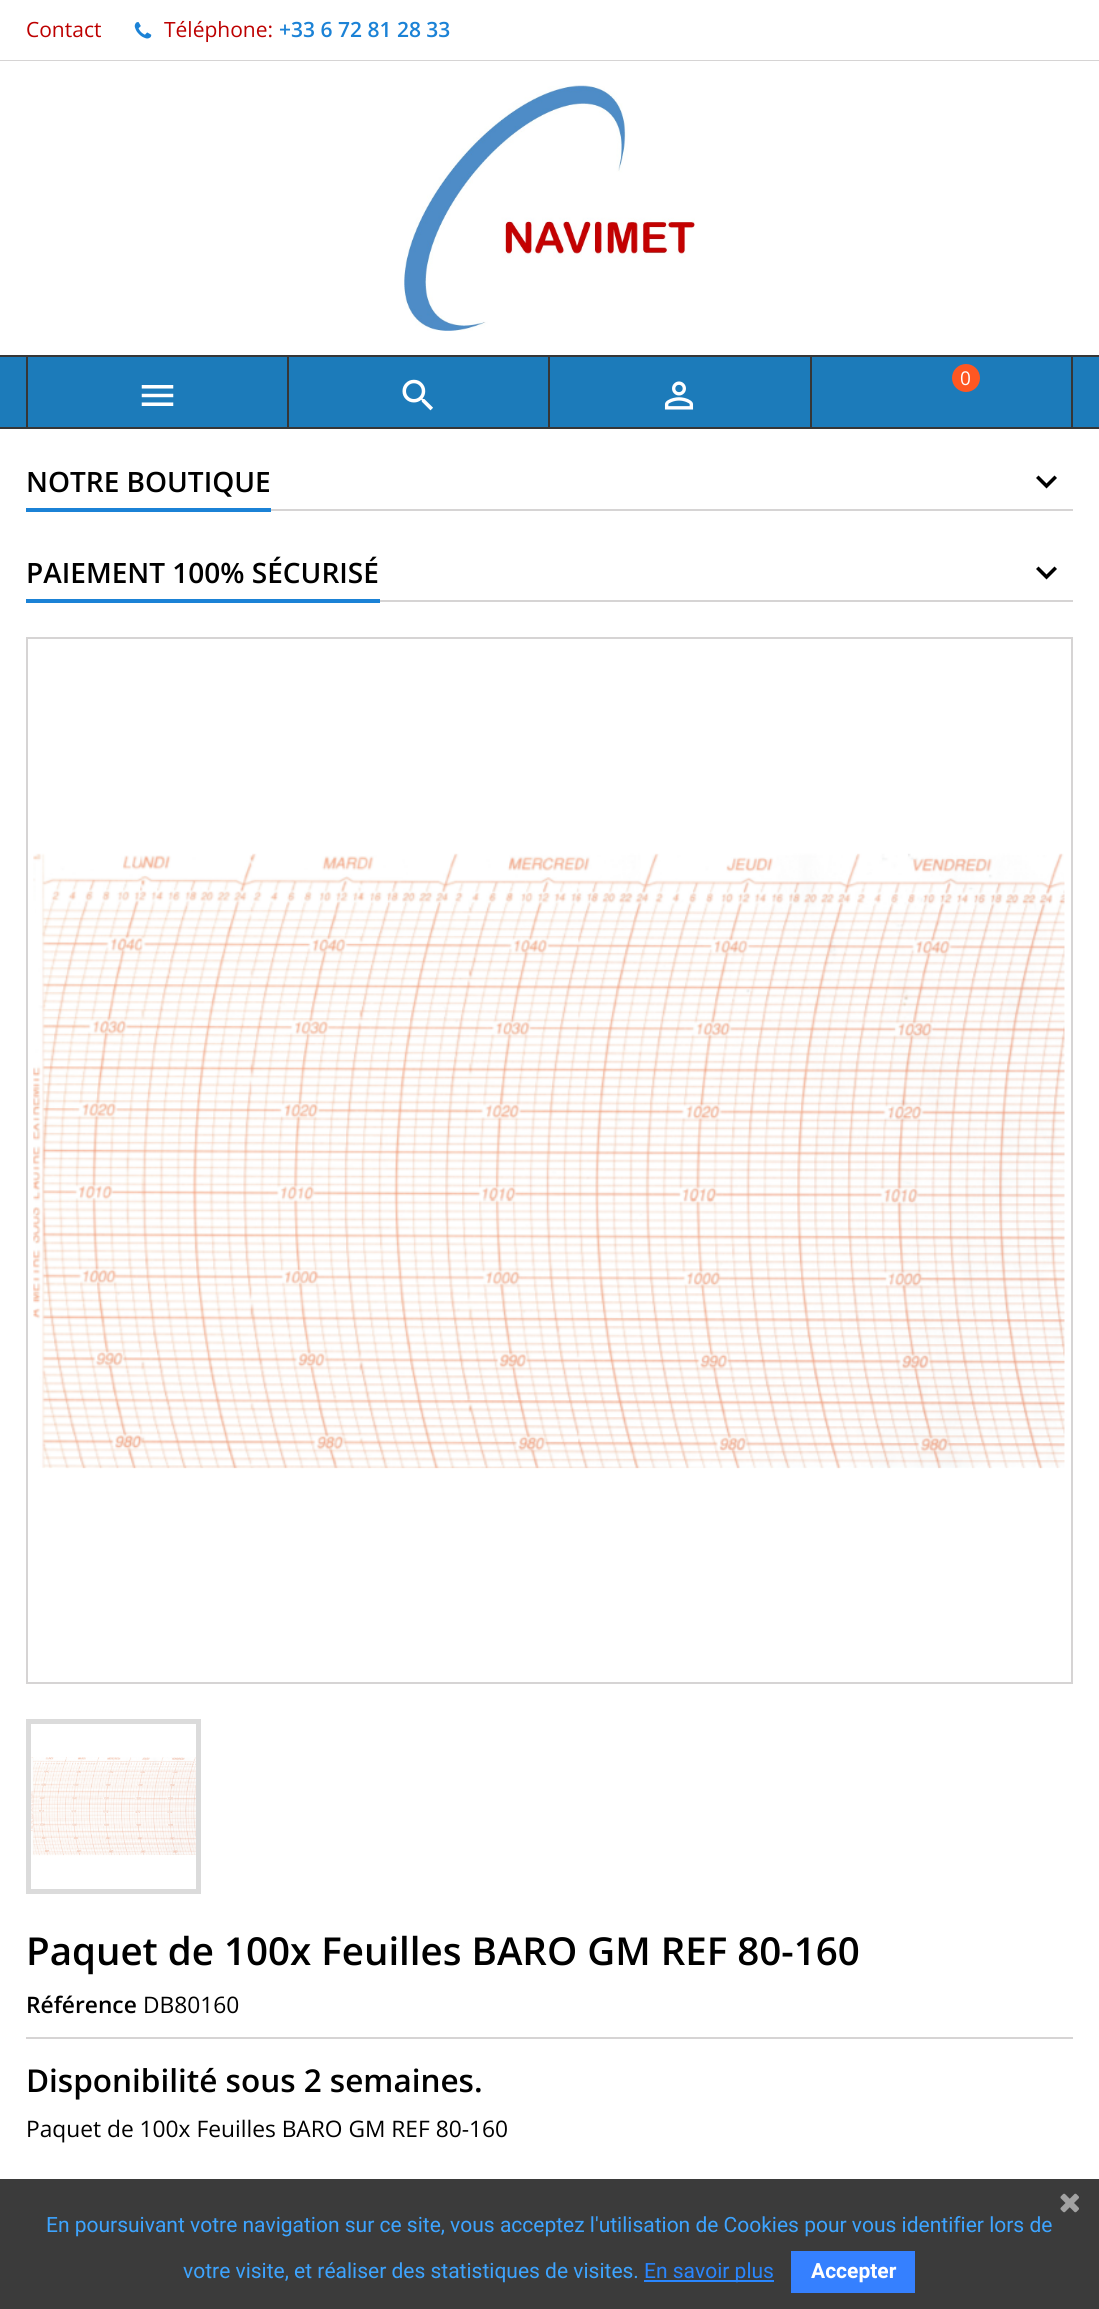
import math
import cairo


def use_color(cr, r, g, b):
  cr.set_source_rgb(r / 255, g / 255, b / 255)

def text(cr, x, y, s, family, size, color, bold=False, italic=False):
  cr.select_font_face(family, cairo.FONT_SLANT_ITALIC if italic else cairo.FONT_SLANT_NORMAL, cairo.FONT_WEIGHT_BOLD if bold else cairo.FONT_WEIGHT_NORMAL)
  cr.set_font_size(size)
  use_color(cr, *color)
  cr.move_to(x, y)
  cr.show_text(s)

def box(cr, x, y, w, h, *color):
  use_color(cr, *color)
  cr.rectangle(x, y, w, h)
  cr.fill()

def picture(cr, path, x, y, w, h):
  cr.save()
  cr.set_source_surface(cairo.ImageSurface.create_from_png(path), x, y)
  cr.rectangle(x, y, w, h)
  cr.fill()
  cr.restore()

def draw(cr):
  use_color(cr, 255, 255, 255)
  cr.paint()
  box(cr, 0, 60, 1099, 1, 214, 212, 212)
  picture(cr, "img_01.png", 134, 22, 18, 17)
  picture(cr, "img_02.png", 404, 85, 291, 246)
  box(cr, 0, 357, 1099, 70, 28, 123, 186)
  box(cr, 0, 355, 1099, 2, 54, 54, 54)
  box(cr, 0, 427, 1099, 2, 54, 54, 54)
  box(cr, 287, 357, 2, 70, 54, 54, 54)
  box(cr, 26, 357, 2, 70, 54, 54, 54)
  picture(cr, "img_03.png", 141, 385, 33, 21)
  box(cr, 548, 357, 2, 70, 54, 54, 54)
  picture(cr, "img_04.png", 402, 379, 31, 32)
  box(cr, 810, 357, 2, 70, 54, 54, 54)
  picture(cr, "img_05.png", 664, 381, 30, 29)
  box(cr, 1071, 357, 2, 70, 54, 54, 54)
  use_color(cr, 255, 87, 34)
  cr.arc(966, 378, 14, 0, 2 * math.pi)
  cr.fill()
  box(cr, 271, 509, 802, 2, 214, 212, 212)
  box(cr, 26, 508, 245, 4, 27, 130, 214)
  use_color(cr, 0, 0, 0)
  cr.new_path()
  cr.move_to(1038.5, 475.5)
  cr.line_to(1046.5, 483.5)
  cr.line_to(1054.5, 475.5)
  cr.line_to(1057, 478)
  cr.line_to(1046.5, 488.5)
  cr.line_to(1036, 478)
  cr.close_path()
  cr.fill()
  box(cr, 380, 600, 693, 2, 214, 212, 212)
  box(cr, 26, 599, 354, 4, 27, 130, 214)
  use_color(cr, 0, 0, 0)
  cr.new_path()
  cr.move_to(1038.5, 566.5)
  cr.line_to(1046.5, 574.5)
  cr.line_to(1054.5, 566.5)
  cr.line_to(1057, 569)
  cr.line_to(1046.5, 579.5)
  cr.line_to(1036, 569)
  cr.close_path()
  cr.fill()
  cr.rectangle(27, 638, 1045, 1045)
  use_color(cr, 214, 212, 212)
  cr.stroke()
  picture(cr, "img_06.png", 33, 853, 1032, 616)
  cr.rectangle(28.5, 1721.5, 170, 170)
  use_color(cr, 219, 219, 219)
  cr.set_line_width(5)
  cr.stroke()
  picture(cr, "img_07.png", 31, 1757, 165, 99)
  box(cr, 26, 2037, 1047, 2, 214, 212, 212)
  box(cr, 0, 2179, 1099, 130, 59, 59, 59)
  picture(cr, "img_08.png", 1060, 2193, 19, 20)
  box(cr, 644, 2280, 130, 2, 41, 134, 255)
  box(cr, 791, 2251, 124, 42, 53, 128, 255)
  text(cr, 26, 37, "Contact", "Open Sans", 21, (189, 0, 0))
  text(cr, 164, 37, "Téléphone:", "Open Sans", 21, (189, 0, 0))
  text(cr, 279, 37, "+33 6 72 81 28 33", "Open Sans SemiBold", 21, (27, 130, 214))
  text(cr, 960, 385, "0", "Open Sans", 19, (255, 255, 255))
  text(cr, 26, 492, "NOTRE BOUTIQUE", "Open Sans SemiBold", 28, (0, 0, 0))
  text(cr, 26, 583, "PAIEMENT 100% SÉCURISÉ", "Open Sans SemiBold", 28, (0, 0, 0))
  text(cr, 26, 1965, "Paquet de 100x Feuilles BARO GM REF 80-160", "Open Sans SemiBold", 38.5, (0, 0, 0))
  text(cr, 26, 2013, "Référence", "Open Sans SemiBold", 22.75, (0, 0, 0))
  text(cr, 143, 2013, "DB80160", "Open Sans", 22.75, (0, 0, 0))
  text(cr, 26, 2092, "Disponibilité sous 2 semaines.", "Open Sans SemiBold", 31.5, (0, 0, 0))
  text(cr, 26, 2137, "Paquet de 100x Feuilles BARO GM REF 80-160", "Open Sans", 22.75, (0, 0, 0))
  text(cr, 46, 2232, "En poursuivant votre navigation sur ce site, vous acceptez l'utilisation de Cookies pour vous identifier lors de", "Roboto", 21, (61, 164, 255))
  text(cr, 183, 2278, "votre visite, et réaliser des statistiques de visites.", "Roboto", 21, (61, 164, 255))
  text(cr, 644, 2278, "En savoir plus", "Roboto", 21, (41, 134, 255))
  text(cr, 811, 2278, "Accepter", "Roboto", 21, (255, 255, 255), bold=True)


surface = cairo.ImageSurface(cairo.FORMAT_RGB24, 1099, 2309)
cr = cairo.Context(surface)
options = cairo.FontOptions()
options.set_hint_metrics(cairo.HINT_METRICS_OFF)
options.set_hint_style(cairo.HINT_STYLE_NONE)
cr.set_font_options(options)
cr.set_miter_limit(4)
draw(cr)
surface.write_to_png("out.png")
